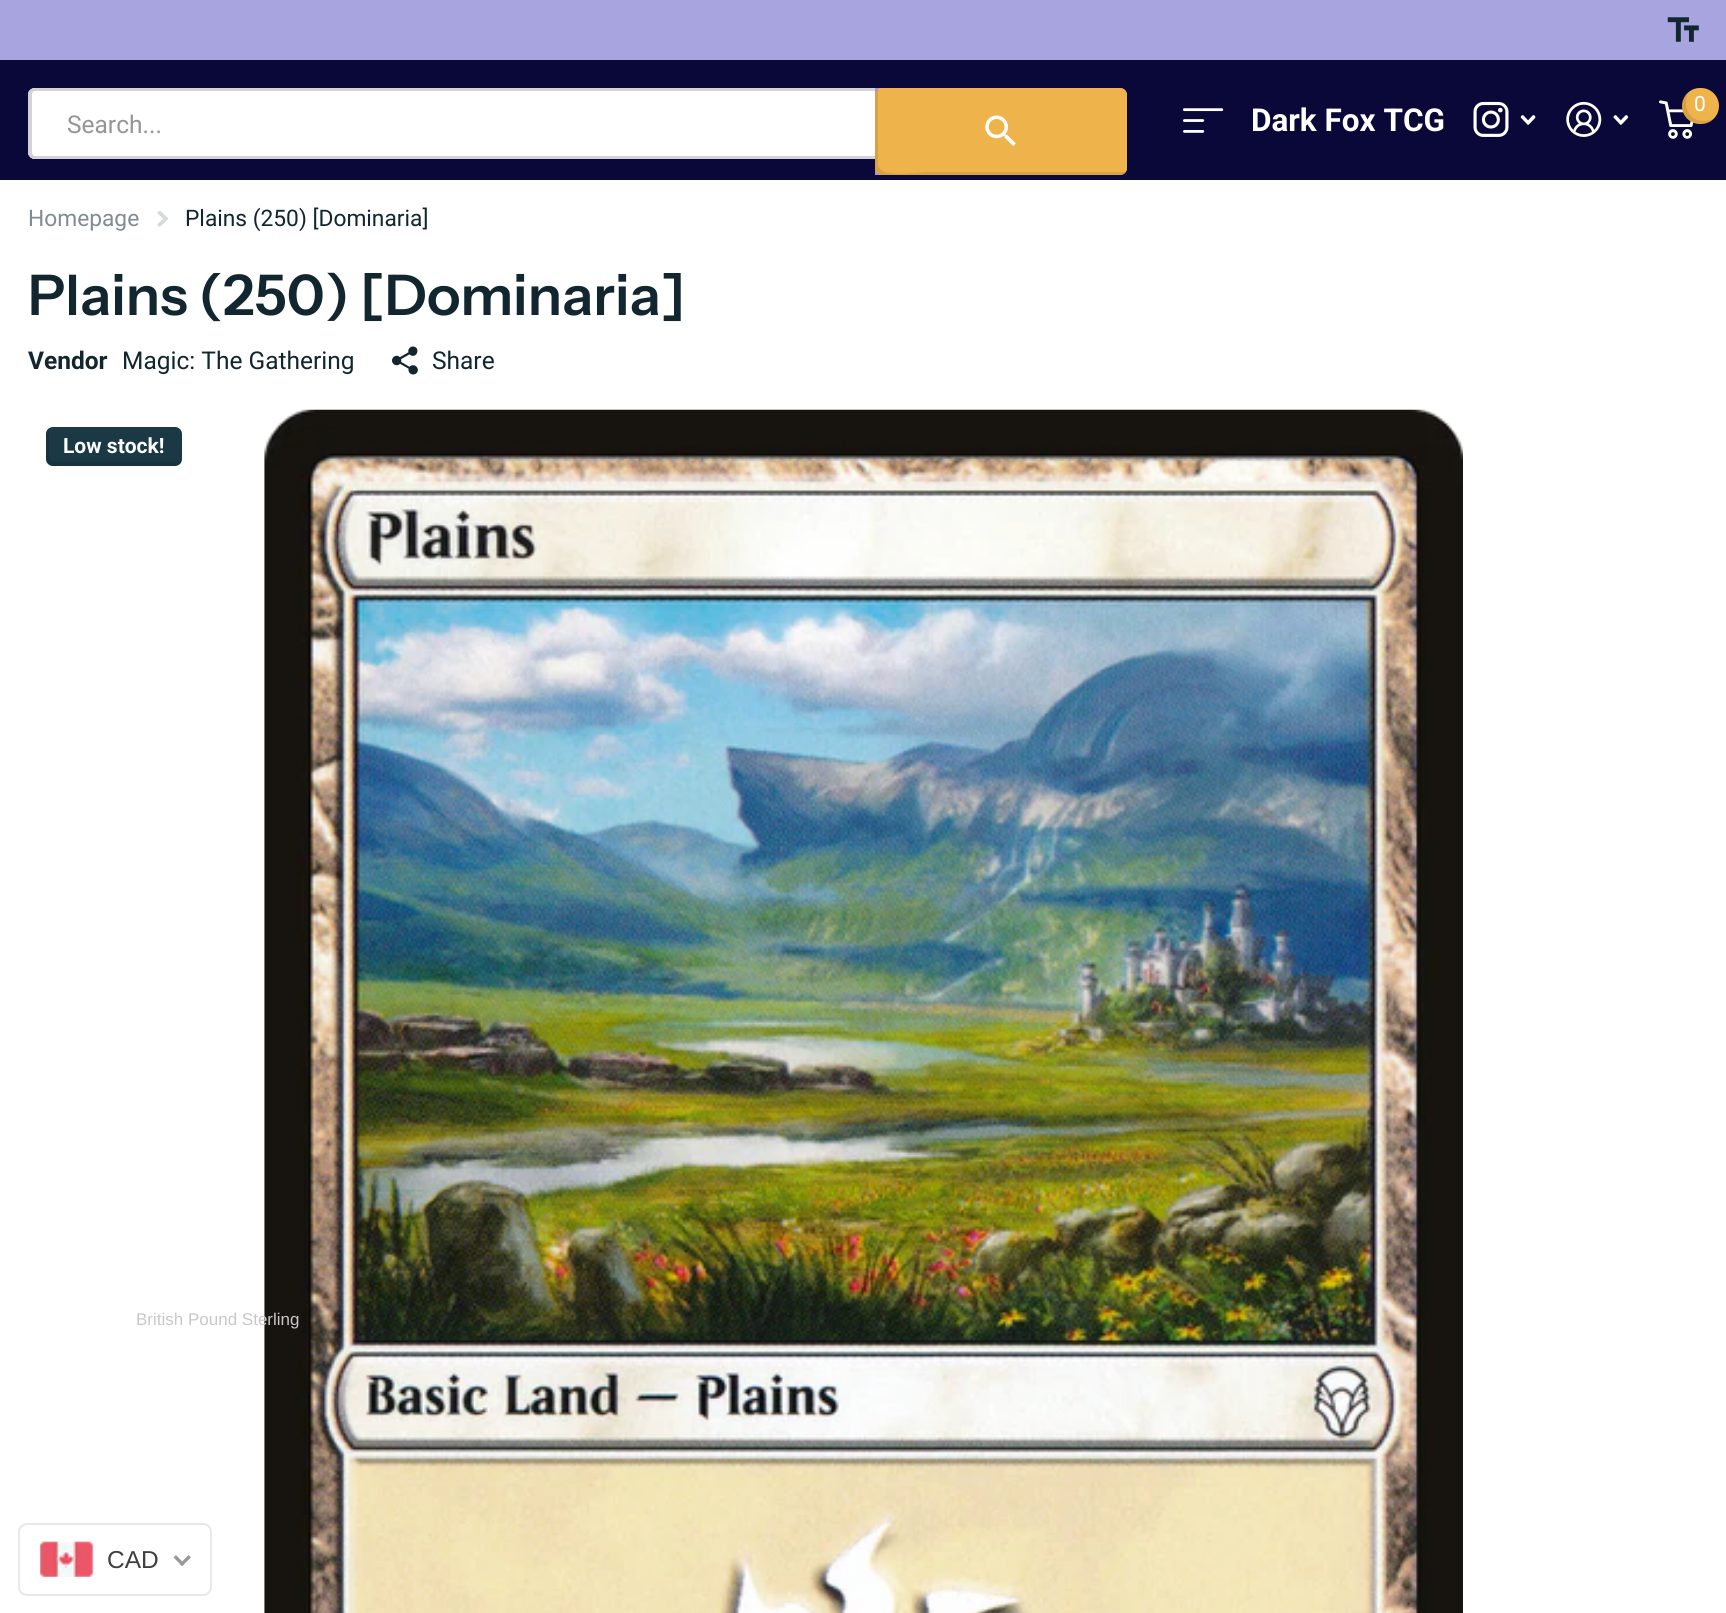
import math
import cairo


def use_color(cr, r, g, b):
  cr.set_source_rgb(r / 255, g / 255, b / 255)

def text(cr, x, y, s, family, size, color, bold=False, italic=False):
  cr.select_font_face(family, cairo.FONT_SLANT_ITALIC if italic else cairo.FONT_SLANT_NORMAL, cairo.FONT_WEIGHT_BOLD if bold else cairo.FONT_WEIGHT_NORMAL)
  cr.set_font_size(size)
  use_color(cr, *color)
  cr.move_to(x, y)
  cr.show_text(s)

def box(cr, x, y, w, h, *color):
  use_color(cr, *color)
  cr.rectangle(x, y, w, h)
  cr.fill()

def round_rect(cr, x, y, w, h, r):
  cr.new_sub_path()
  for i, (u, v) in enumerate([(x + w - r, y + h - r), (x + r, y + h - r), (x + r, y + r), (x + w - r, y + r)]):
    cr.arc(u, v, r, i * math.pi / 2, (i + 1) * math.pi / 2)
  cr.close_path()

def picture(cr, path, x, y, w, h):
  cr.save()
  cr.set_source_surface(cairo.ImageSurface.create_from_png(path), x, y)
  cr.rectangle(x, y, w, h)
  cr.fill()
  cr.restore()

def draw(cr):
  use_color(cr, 255, 255, 255)
  cr.paint()
  box(cr, 0, 0, 1726, 60, 168, 164, 224)
  picture(cr, "img_01.png", 1667, 17, 32, 25)
  box(cr, 0, 60, 1726, 120, 9, 8, 56)
  picture(cr, "img_02.png", 1473, 101, 36, 36)
  picture(cr, "img_03.png", 1520, 115, 16, 10)
  picture(cr, "img_04.png", 1566, 101, 36, 36)
  picture(cr, "img_05.png", 1613, 115, 16, 10)
  picture(cr, "img_06.png", 1659, 100, 35, 39)
  use_color(cr, 239, 179, 76)
  round_rect(cr, 1682, 88, 37, 36, 18)
  cr.fill()
  cr.set_source_rgba(0, 0, 0, 0.1)
  cr.new_path()
  cr.move_to(1714.5, 118)
  cr.curve_to(1711.5, 120, 1708, 121, 1704, 121)
  cr.curve_to(1687, 121, 1682, 102.5, 1689, 91.5)
  cr.curve_to(1680.5, 98, 1679.5, 111, 1687.5, 118.5)
  cr.curve_to(1694.5, 126, 1707.5, 125.5, 1714.5, 118)
  cr.close_path()
  cr.fill()
  use_color(cr, 255, 255, 255)
  cr.new_path()
  cr.move_to(35, 88)
  cr.line_to(875, 88)
  cr.line_to(875, 159)
  cr.line_to(35, 159)
  cr.curve_to(31, 159, 28, 156, 28, 152)
  cr.line_to(28, 95)
  cr.curve_to(28, 91, 31, 88, 35, 88)
  cr.close_path()
  cr.fill()
  use_color(cr, 211, 211, 211)
  cr.set_fill_rule(cairo.FILL_RULE_EVEN_ODD)
  cr.new_path()
  cr.move_to(35, 88)
  cr.line_to(875, 88)
  cr.line_to(875, 159)
  cr.line_to(35, 159)
  cr.curve_to(31, 159, 28, 156, 28, 152)
  cr.line_to(28, 94)
  cr.curve_to(28, 91, 31, 88, 35, 88)
  cr.close_path()
  cr.move_to(35, 91)
  cr.line_to(875, 91)
  cr.line_to(875, 156)
  cr.line_to(35, 156)
  cr.curve_to(33, 156, 32, 154, 32, 152)
  cr.line_to(32, 94)
  cr.curve_to(32, 93, 33, 91, 35, 91)
  cr.close_path()
  cr.fill()
  use_color(cr, 174, 146, 226)
  cr.new_path()
  cr.move_to(875, 88)
  cr.line_to(1120, 88)
  cr.curve_to(1124, 88, 1127, 91, 1127, 95)
  cr.line_to(1127, 168)
  cr.curve_to(1127, 172, 1124, 175, 1120, 175)
  cr.line_to(875, 175)
  cr.close_path()
  cr.fill()
  use_color(cr, 239, 179, 76)
  round_rect(cr, 875, 88, 252, 87, 7)
  cr.fill()
  cr.set_source_rgba(0, 0, 0, 0.1)
  cr.set_fill_rule(cairo.FILL_RULE_WINDING)
  cr.new_path()
  cr.move_to(878, 89)
  cr.curve_to(876, 90, 875, 92, 875, 95)
  cr.line_to(875, 168)
  cr.curve_to(875, 172, 878, 175, 882, 175)
  cr.line_to(1120, 175)
  cr.curve_to(1123, 175, 1125, 174, 1126, 171)
  cr.line_to(1124, 172)
  cr.line_to(926, 172)
  cr.curve_to(916, 172, 881, 179, 878, 165)
  cr.close_path()
  cr.fill()
  picture(cr, "img_07.png", 985, 115, 31, 31)
  picture(cr, "img_08.png", 1183, 108, 41, 25)
  picture(cr, "img_09.png", 157, 211, 11, 16)
  picture(cr, "img_10.png", 392, 346, 26, 29)
  use_color(cr, 26, 57, 69)
  round_rect(cr, 46, 427, 136, 39, 7)
  cr.fill()
  cr.set_source_rgba(0, 0, 0, 0.1)
  cr.new_path()
  cr.move_to(49, 428)
  cr.curve_to(47, 429, 46, 431, 46, 434)
  cr.line_to(46, 459)
  cr.curve_to(46, 463, 49, 466, 53, 466)
  cr.line_to(175, 466)
  cr.curve_to(178, 466, 181, 464, 182, 461)
  cr.line_to(178, 462)
  cr.line_to(56, 462)
  cr.curve_to(52, 462, 49, 459, 49, 455)
  cr.line_to(49, 430)
  cr.close_path()
  cr.fill()
  picture(cr, "img_11.png", 264, 409, 1199, 1204)
  round_rect(cr, 19, 1524, 192, 71, 8)
  use_color(cr, 232, 232, 232)
  cr.stroke()
  picture(cr, "img_12.png", 40, 1541, 54, 36)
  use_color(cr, 153, 153, 153)
  cr.new_path()
  cr.move_to(188.5, 1555)
  cr.line_to(191, 1557.5)
  cr.line_to(182, 1566)
  cr.line_to(179.5, 1564)
  cr.close_path()
  cr.fill()
  cr.new_path()
  cr.move_to(176, 1555)
  cr.line_to(184.5, 1564)
  cr.line_to(182, 1566)
  cr.line_to(173.5, 1557.5)
  cr.close_path()
  cr.fill()
  text(cr, 1694, 111, "0", "Roboto", 21, (255, 255, 255))
  text(cr, 67, 133, "Search...", "Roboto", 24.5, (149, 149, 149))
  text(cr, 1251, 131, "Dark Fox TCG", "Roboto", 31.5, (255, 255, 255), bold=True)
  text(cr, 28, 226, "Homepage", "Roboto", 22.75, (129, 140, 145))
  text(cr, 185, 226, "Plains (250) [Dominaria]", "Roboto", 22.75, (18, 38, 47))
  text(cr, 28, 315, "Plains (250) [Dominaria]", "Instrument Sans SemiBold", 56, (18, 38, 47))
  text(cr, 28, 369, "Vendor", "Roboto", 24.5, (18, 38, 47), bold=True)
  text(cr, 122, 369, "Magic: The Gathering", "Roboto", 24.5, (18, 38, 47))
  text(cr, 432, 369, "Share", "Roboto", 24.5, (18, 38, 47))
  text(cr, 63, 453, "Low stock!", "Roboto", 21, (255, 255, 255), bold=True)
  text(cr, 136, 1325, "British Pound Sterling", "Liberation Sans", 17, (201, 200, 199))
  text(cr, 107, 1568, "CAD", "Liberation Sans", 24.5, (64, 63, 63))


surface = cairo.ImageSurface(cairo.FORMAT_RGB24, 1726, 1613)
cr = cairo.Context(surface)
options = cairo.FontOptions()
options.set_hint_metrics(cairo.HINT_METRICS_OFF)
options.set_hint_style(cairo.HINT_STYLE_NONE)
cr.set_font_options(options)
cr.set_miter_limit(4)
draw(cr)
surface.write_to_png("out.png")
